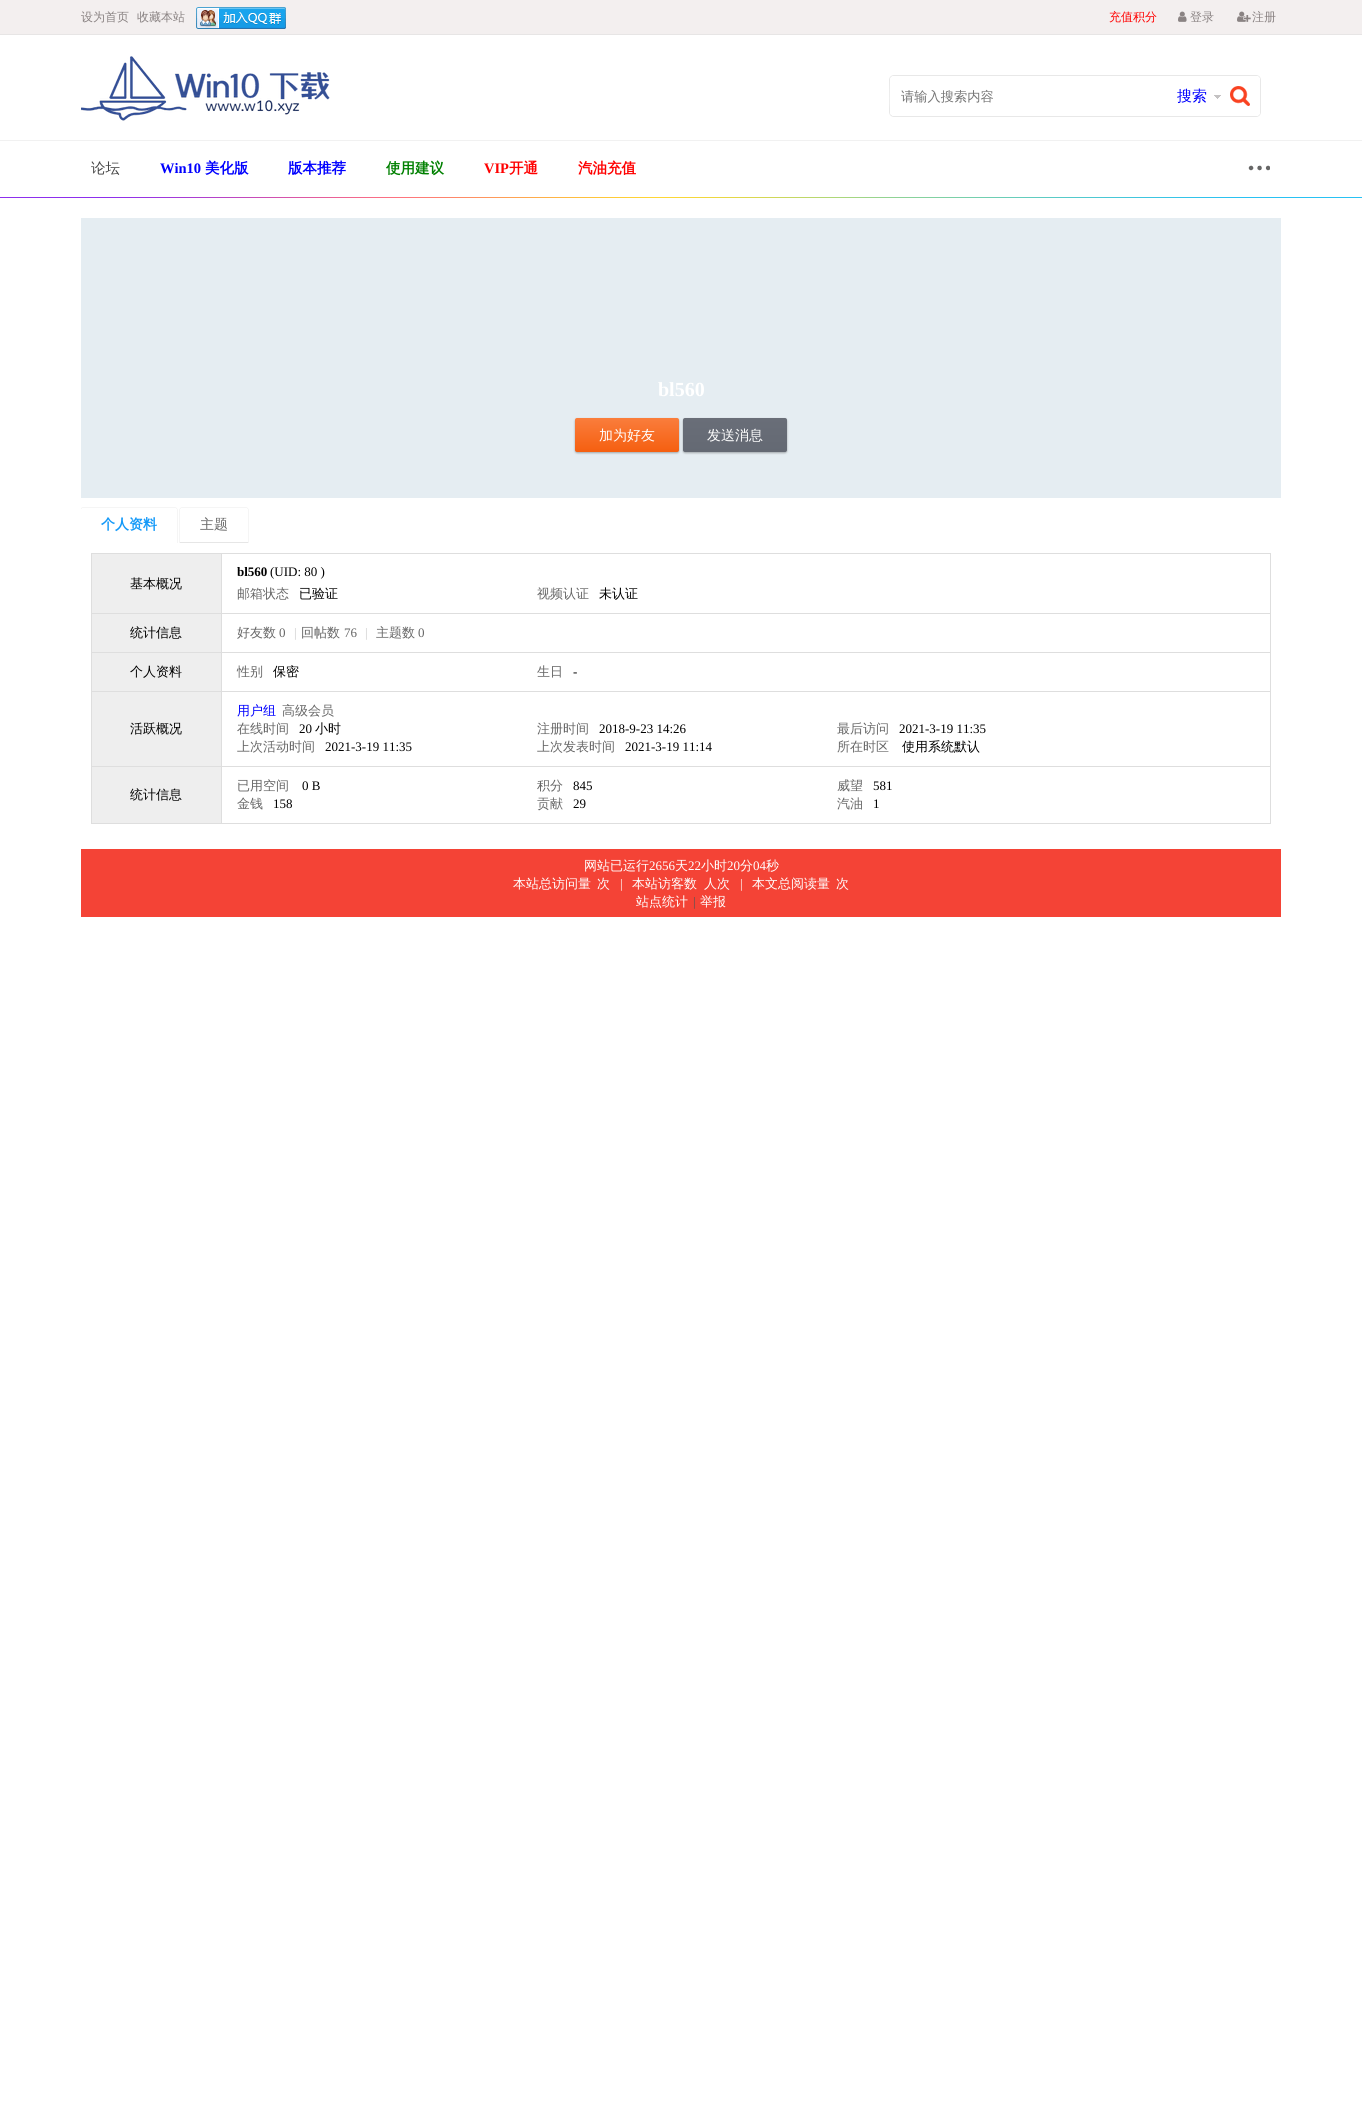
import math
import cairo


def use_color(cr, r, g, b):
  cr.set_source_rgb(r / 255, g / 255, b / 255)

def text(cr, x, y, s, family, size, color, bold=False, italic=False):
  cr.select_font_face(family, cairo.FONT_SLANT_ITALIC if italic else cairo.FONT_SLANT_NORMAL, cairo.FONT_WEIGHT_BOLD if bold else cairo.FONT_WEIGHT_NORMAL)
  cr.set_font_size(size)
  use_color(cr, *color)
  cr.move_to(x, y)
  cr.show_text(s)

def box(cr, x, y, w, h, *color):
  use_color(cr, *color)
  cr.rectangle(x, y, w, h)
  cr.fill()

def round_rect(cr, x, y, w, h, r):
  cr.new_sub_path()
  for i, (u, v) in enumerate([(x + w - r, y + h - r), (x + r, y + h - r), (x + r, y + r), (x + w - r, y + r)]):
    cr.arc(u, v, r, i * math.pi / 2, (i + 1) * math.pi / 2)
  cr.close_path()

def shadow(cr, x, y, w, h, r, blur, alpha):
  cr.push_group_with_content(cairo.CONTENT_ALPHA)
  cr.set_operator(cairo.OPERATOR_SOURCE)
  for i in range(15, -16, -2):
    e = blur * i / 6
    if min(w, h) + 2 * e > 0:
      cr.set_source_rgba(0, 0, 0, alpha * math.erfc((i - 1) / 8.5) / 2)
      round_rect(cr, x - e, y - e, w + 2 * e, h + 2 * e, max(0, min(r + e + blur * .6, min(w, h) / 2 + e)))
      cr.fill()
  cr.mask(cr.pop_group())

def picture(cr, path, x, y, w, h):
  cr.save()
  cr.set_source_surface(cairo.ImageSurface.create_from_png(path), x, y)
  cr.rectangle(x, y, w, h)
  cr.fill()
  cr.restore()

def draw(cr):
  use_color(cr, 255, 255, 255)
  cr.paint()
  box(cr, 0, 0, 1362, 34, 243, 239, 239)
  box(cr, 0, 34, 1362, 1, 231, 229, 229)
  picture(cr, "img_01.png", 196, 7, 90, 22)
  picture(cr, "img_02.png", 1178, 11, 9, 11)
  picture(cr, "img_03.png", 1237, 11, 14, 11)
  picture(cr, "img_04.png", 81, 56, 249, 65)
  round_rect(cr, 889.5, 75.5, 371, 41, 4.5)
  use_color(cr, 232, 232, 232)
  cr.set_line_width(1)
  cr.stroke()
  use_color(cr, 255, 255, 255)
  round_rect(cr, 890, 76, 370, 40, 4)
  cr.fill()
  cr.set_fill_rule(cairo.FILL_RULE_EVEN_ODD)
  cr.new_path()
  cr.move_to(890, 80)
  cr.curve_to(890, 85, 889, 112, 891, 115)
  cr.line_to(891, 77)
  cr.close_path()
  cr.move_to(894, 76)
  cr.line_to(891, 77)
  cr.line_to(1169, 77)
  cr.line_to(1169, 116)
  cr.line_to(1170, 116)
  cr.line_to(1170, 76)
  cr.close_path()
  cr.fill()
  picture(cr, "img_05.png", 1214, 95, 7, 4)
  picture(cr, "img_06.png", 1230, 76, 30, 40)
  box(cr, 0, 140, 1362, 1, 241, 241, 241)
  picture(cr, "img_07.png", 1248, 165, 22, 6)
  picture(cr, "img_08.png", 0, 197, 1362, 1)
  box(cr, 81, 218, 1200, 280, 229, 237, 242)
  use_color(cr, 0, 0, 0)
  shadow(cr, 575, 419, 104, 34, 2, 1, 0.3)
  gradient = cairo.LinearGradient(627, 418, 627, 452)
  gradient.add_color_stop_rgba(0, 0.98, 0.49, 0.235, 1)
  gradient.add_color_stop_rgba(1, 0.961, 0.373, 0.063, 1)
  cr.set_source(gradient)
  round_rect(cr, 575, 418, 104, 34, 2)
  cr.fill()
  use_color(cr, 0, 0, 0)
  shadow(cr, 683, 419, 104, 34, 2, 1, 0.3)
  gradient = cairo.LinearGradient(735, 418, 735, 452)
  gradient.add_color_stop_rgba(0, 0.412, 0.431, 0.471, 1)
  gradient.add_color_stop_rgba(1, 0.392, 0.412, 0.451, 1)
  cr.set_source(gradient)
  round_rect(cr, 683, 418, 104, 34, 2)
  cr.fill()
  use_color(cr, 245, 245, 245)
  cr.set_fill_rule(cairo.FILL_RULE_WINDING)
  cr.new_path()
  cr.move_to(177, 544)
  cr.line_to(178, 544)
  cr.line_to(178, 510)
  cr.curve_to(178, 509, 177, 508, 176, 508)
  cr.line_to(175, 508)
  cr.curve_to(176, 508, 177, 509, 177, 510)
  cr.close_path()
  cr.fill()
  cr.set_source_rgba(0, 0, 0, 0.04)
  cr.new_path()
  cr.move_to(83, 507)
  cr.curve_to(81, 507, 81, 509, 81, 510)
  cr.curve_to(81, 509, 82, 508, 83, 508)
  cr.line_to(175, 508)
  cr.curve_to(176, 508, 177, 509, 177, 510)
  cr.curve_to(177, 509, 177, 507, 175, 507)
  cr.close_path()
  cr.fill()
  cr.save()
  cr.rectangle(81, 198, 1200, 719)
  cr.clip()
  use_color(cr, 239, 239, 239)
  cr.new_path()
  cr.move_to(82, 508)
  cr.curve_to(81, 508, 80, 509, 80, 510)
  cr.line_to(80, 544)
  cr.line_to(81, 544)
  cr.line_to(81, 510)
  cr.curve_to(81, 509, 82, 508, 83, 508)
  cr.close_path()
  cr.fill()
  cr.restore()
  use_color(cr, 255, 255, 255)
  cr.new_path()
  cr.move_to(83, 508)
  cr.line_to(175, 508)
  cr.curve_to(176, 508, 177, 509, 177, 510)
  cr.line_to(177, 544)
  cr.line_to(81, 544)
  cr.line_to(81, 510)
  cr.curve_to(81, 509, 82, 508, 83, 508)
  cr.close_path()
  cr.fill()
  use_color(cr, 245, 245, 245)
  cr.new_path()
  cr.move_to(248, 543)
  cr.line_to(249, 543)
  cr.line_to(249, 510)
  cr.curve_to(249, 509, 248, 508, 247, 508)
  cr.line_to(246, 508)
  cr.curve_to(247, 508, 248, 509, 248, 510)
  cr.close_path()
  cr.fill()
  cr.set_source_rgba(0, 0, 0, 0.04)
  cr.new_path()
  cr.move_to(182, 507)
  cr.curve_to(180, 507, 180, 509, 180, 510)
  cr.curve_to(180, 509, 181, 508, 182, 508)
  cr.line_to(247, 508)
  cr.line_to(248, 510)
  cr.curve_to(248, 509, 248, 507, 246, 507)
  cr.close_path()
  cr.fill()
  cr.new_path()
  cr.move_to(181, 508)
  cr.curve_to(180, 508, 179, 509, 179, 510)
  cr.line_to(179, 543)
  cr.line_to(180, 543)
  cr.line_to(180, 510)
  cr.curve_to(180, 509, 181, 508, 182, 508)
  cr.close_path()
  cr.fill()
  use_color(cr, 255, 255, 255)
  cr.new_path()
  cr.move_to(182, 508)
  cr.line_to(246, 508)
  cr.curve_to(247, 508, 248, 509, 248, 510)
  cr.line_to(248, 543)
  cr.line_to(180, 543)
  cr.line_to(180, 510)
  cr.curve_to(180, 509, 181, 508, 182, 508)
  cr.close_path()
  cr.fill()
  box(cr, 180, 542, 68, 1, 230, 230, 230)
  use_color(cr, 255, 255, 255)
  round_rect(cr, 81, 543, 1200, 291, 3)
  cr.fill()
  box(cr, 91, 823, 1180, 1, 222, 222, 222)
  box(cr, 92, 554, 129, 59, 238, 238, 238)
  box(cr, 221, 553, 1050, 1, 222, 222, 222)
  box(cr, 221, 613, 1050, 1, 222, 222, 222)
  box(cr, 221, 652, 1050, 1, 222, 222, 222)
  box(cr, 221, 691, 1050, 1, 222, 222, 222)
  box(cr, 221, 766, 1050, 1, 222, 222, 222)
  box(cr, 221, 766, 1, 58, 222, 222, 222)
  box(cr, 91, 766, 131, 1, 222, 222, 222)
  box(cr, 221, 691, 1, 76, 222, 222, 222)
  box(cr, 91, 691, 131, 1, 222, 222, 222)
  box(cr, 221, 652, 1, 40, 222, 222, 222)
  box(cr, 91, 652, 131, 1, 222, 222, 222)
  box(cr, 221, 613, 1, 40, 222, 222, 222)
  box(cr, 91, 613, 131, 1, 222, 222, 222)
  box(cr, 221, 553, 1, 61, 222, 222, 222)
  box(cr, 91, 553, 131, 1, 222, 222, 222)
  box(cr, 91, 766, 1, 58, 222, 222, 222)
  box(cr, 91, 691, 1, 76, 222, 222, 222)
  box(cr, 91, 652, 1, 40, 222, 222, 222)
  box(cr, 91, 613, 1, 40, 222, 222, 222)
  box(cr, 91, 553, 1, 61, 222, 222, 222)
  box(cr, 1270, 766, 1, 58, 222, 222, 222)
  box(cr, 1270, 691, 1, 76, 222, 222, 222)
  box(cr, 1270, 652, 1, 40, 222, 222, 222)
  box(cr, 1270, 613, 1, 40, 222, 222, 222)
  box(cr, 1270, 553, 1, 61, 222, 222, 222)
  box(cr, 92, 614, 129, 38, 238, 238, 238)
  box(cr, 92, 653, 129, 38, 238, 238, 238)
  box(cr, 92, 692, 129, 74, 238, 238, 238)
  box(cr, 92, 767, 129, 56, 238, 238, 238)
  box(cr, 81, 849, 1200, 68, 244, 67, 54)
  text(cr, 81, 21, "设为首页", "WenQuanYi Zen Hei Medium", 12, (138, 131, 131))
  text(cr, 137, 21, "收藏本站", "WenQuanYi Zen Hei Medium", 12, (138, 131, 131))
  text(cr, 1109, 21, "充值积分", "WenQuanYi Zen Hei Medium", 12, (255, 0, 0))
  text(cr, 1190, 21, "登录", "WenQuanYi Zen Hei Medium", 12, (138, 131, 131))
  text(cr, 1252, 21, "注册", "WenQuanYi Zen Hei Medium", 12, (138, 131, 131))
  text(cr, 901, 101, "请输入搜索内容", "WenQuanYi Zen Hei Medium", 13.25, (117, 117, 117))
  text(cr, 1177, 101, "搜索", "WenQuanYi Zen Hei Medium", 15, (0, 0, 255))
  text(cr, 91, 173, "论坛", "WenQuanYi Zen Hei Medium", 14.5, (69, 69, 69))
  text(cr, 160, 173, "Win10", "Liberation Serif", 14.5, (0, 0, 255), bold=True)
  text(cr, 205, 173, "美化版", "WenQuanYi Zen Hei", 14.5, (0, 0, 255), bold=True)
  text(cr, 288, 173, "版本推荐", "WenQuanYi Zen Hei", 14.5, (0, 0, 255), bold=True)
  text(cr, 386, 173, "使用建议", "WenQuanYi Zen Hei", 14.5, (0, 128, 0), bold=True)
  text(cr, 484, 173, "VIP", "Liberation Serif", 14.5, (255, 0, 0), bold=True)
  text(cr, 509, 173, "开通", "WenQuanYi Zen Hei", 14.5, (255, 0, 0), bold=True)
  text(cr, 578, 173, "汽油充值", "WenQuanYi Zen Hei", 14.5, (255, 0, 0), bold=True)
  text(cr, 658, 396, "bl560", "Liberation Serif", 20, (255, 255, 255), bold=True)
  text(cr, 599, 440, "加为好友", "WenQuanYi Zen Hei Medium", 14, (255, 255, 255))
  text(cr, 707, 440, "发送消息", "WenQuanYi Zen Hei Medium", 14, (255, 255, 255))
  text(cr, 101, 529, "个人资料", "WenQuanYi Zen Hei", 14, (20, 153, 248), bold=True)
  text(cr, 200, 529, "主题", "WenQuanYi Zen Hei Medium", 14, (102, 102, 102))
  text(cr, 130, 588, "基本概况", "WenQuanYi Zen Hei Medium", 13, (0, 0, 0))
  text(cr, 237, 576, "bl560", "Liberation Serif", 13, (0, 0, 0), bold=True)
  text(cr, 270, 576, "(UID: 80 )", "Liberation Serif", 13, (0, 0, 0))
  text(cr, 237, 598, "邮箱状态", "WenQuanYi Zen Hei Medium", 13, (102, 102, 102))
  text(cr, 299, 598, "已验证", "WenQuanYi Zen Hei Medium", 13, (0, 0, 0))
  text(cr, 537, 598, "视频认证", "WenQuanYi Zen Hei Medium", 13, (102, 102, 102))
  text(cr, 599, 598, "未认证", "WenQuanYi Zen Hei Medium", 13, (0, 0, 0))
  text(cr, 130, 637, "统计信息", "WenQuanYi Zen Hei Medium", 13, (0, 0, 0))
  text(cr, 237, 637, "好友数", "WenQuanYi Zen Hei Medium", 13, (102, 102, 102))
  text(cr, 279, 637, "0", "Liberation Serif", 13, (102, 102, 102))
  text(cr, 294, 637, "|", "Liberation Serif", 13, (204, 204, 204))
  text(cr, 301, 637, "回帖数", "WenQuanYi Zen Hei Medium", 13, (102, 102, 102))
  text(cr, 344, 637, "76", "Liberation Serif", 13, (102, 102, 102))
  text(cr, 365, 637, "|", "Liberation Serif", 13, (204, 204, 204))
  text(cr, 376, 637, "主题数", "WenQuanYi Zen Hei Medium", 13, (102, 102, 102))
  text(cr, 418, 637, "0", "Liberation Serif", 13, (102, 102, 102))
  text(cr, 130, 676, "个人资料", "WenQuanYi Zen Hei Medium", 13, (0, 0, 0))
  text(cr, 237, 676, "性别", "WenQuanYi Zen Hei Medium", 13, (102, 102, 102))
  text(cr, 273, 676, "保密", "WenQuanYi Zen Hei Medium", 13, (0, 0, 0))
  text(cr, 537, 676, "生日", "WenQuanYi Zen Hei Medium", 13, (102, 102, 102))
  text(cr, 573, 676, "-", "Liberation Serif", 13, (0, 0, 0))
  text(cr, 130, 733, "活跃概况", "WenQuanYi Zen Hei Medium", 13, (0, 0, 0))
  text(cr, 237, 715, "用户组", "WenQuanYi Zen Hei Medium", 13, (0, 0, 255))
  text(cr, 282, 715, "高级会员", "WenQuanYi Zen Hei Medium", 13, (102, 102, 102))
  text(cr, 237, 733, "在线时间", "WenQuanYi Zen Hei Medium", 13, (102, 102, 102))
  text(cr, 299, 733, "20", "Liberation Serif", 13, (0, 0, 0))
  text(cr, 315, 733, "小时", "WenQuanYi Zen Hei Medium", 13, (0, 0, 0))
  text(cr, 537, 733, "注册时间", "WenQuanYi Zen Hei Medium", 13, (102, 102, 102))
  text(cr, 599, 733, "2018-9-23 14:26", "Liberation Serif", 13, (0, 0, 0))
  text(cr, 837, 733, "最后访问", "WenQuanYi Zen Hei Medium", 13, (102, 102, 102))
  text(cr, 899, 733, "2021-3-19 11:35", "Liberation Serif", 13, (0, 0, 0))
  text(cr, 237, 751, "上次活动时间", "WenQuanYi Zen Hei Medium", 13, (102, 102, 102))
  text(cr, 325, 751, "2021-3-19 11:35", "Liberation Serif", 13, (0, 0, 0))
  text(cr, 537, 751, "上次发表时间", "WenQuanYi Zen Hei Medium", 13, (102, 102, 102))
  text(cr, 625, 751, "2021-3-19 11:14", "Liberation Serif", 13, (0, 0, 0))
  text(cr, 837, 751, "所在时区", "WenQuanYi Zen Hei Medium", 13, (102, 102, 102))
  text(cr, 902, 751, "使用系统默认", "WenQuanYi Zen Hei Medium", 13, (0, 0, 0))
  text(cr, 130, 799, "统计信息", "WenQuanYi Zen Hei Medium", 13, (0, 0, 0))
  text(cr, 237, 790, "已用空间", "WenQuanYi Zen Hei Medium", 13, (102, 102, 102))
  text(cr, 302, 790, "0 B", "Liberation Serif", 13, (0, 0, 0))
  text(cr, 537, 790, "积分", "WenQuanYi Zen Hei Medium", 13, (102, 102, 102))
  text(cr, 573, 790, "845", "Liberation Serif", 13, (0, 0, 0))
  text(cr, 837, 790, "威望", "WenQuanYi Zen Hei Medium", 13, (102, 102, 102))
  text(cr, 873, 790, "581", "Liberation Serif", 13, (0, 0, 0))
  text(cr, 237, 808, "金钱", "WenQuanYi Zen Hei Medium", 13, (102, 102, 102))
  text(cr, 273, 808, "158", "Liberation Serif", 13, (0, 0, 0))
  text(cr, 537, 808, "贡献", "WenQuanYi Zen Hei Medium", 13, (102, 102, 102))
  text(cr, 573, 808, "29", "Liberation Serif", 13, (0, 0, 0))
  text(cr, 837, 808, "汽油", "WenQuanYi Zen Hei Medium", 13, (102, 102, 102))
  text(cr, 873, 808, "1", "Liberation Serif", 13, (0, 0, 0))
  text(cr, 584, 870, "网站已运行", "WenQuanYi Zen Hei Medium", 13, (255, 255, 255))
  text(cr, 649, 870, "2656", "Liberation Serif", 13, (255, 255, 255))
  text(cr, 675, 870, "天", "WenQuanYi Zen Hei Medium", 13, (255, 255, 255))
  text(cr, 688, 870, "22", "Liberation Serif", 13, (255, 255, 255))
  text(cr, 701, 870, "小时", "WenQuanYi Zen Hei Medium", 13, (255, 255, 255))
  text(cr, 727, 870, "20", "Liberation Serif", 13, (255, 255, 255))
  text(cr, 740, 870, "分", "WenQuanYi Zen Hei Medium", 13, (255, 255, 255))
  text(cr, 753, 870, "04", "Liberation Serif", 13, (255, 255, 255))
  text(cr, 766, 870, "秒", "WenQuanYi Zen Hei Medium", 13, (255, 255, 255))
  text(cr, 513, 888, "本站总访问量", "WenQuanYi Zen Hei Medium", 13, (255, 255, 255))
  text(cr, 597, 888, "次", "WenQuanYi Zen Hei Medium", 13, (255, 255, 255))
  text(cr, 620, 888, "|", "Liberation Serif", 13, (255, 255, 255))
  text(cr, 632, 888, "本站访客数", "WenQuanYi Zen Hei Medium", 13, (255, 255, 255))
  text(cr, 704, 888, "人次", "WenQuanYi Zen Hei Medium", 13, (255, 255, 255))
  text(cr, 740, 888, "|", "Liberation Serif", 13, (255, 255, 255))
  text(cr, 752, 888, "本文总阅读量", "WenQuanYi Zen Hei Medium", 13, (255, 255, 255))
  text(cr, 836, 888, "次", "WenQuanYi Zen Hei Medium", 13, (255, 255, 255))
  text(cr, 636, 906, "站点统计", "WenQuanYi Zen Hei Medium", 13, (255, 255, 255))
  text(cr, 693, 906, "|", "Liberation Serif", 13, (85, 85, 85))
  text(cr, 700, 906, "举报", "WenQuanYi Zen Hei Medium", 13, (255, 255, 255))


surface = cairo.ImageSurface(cairo.FORMAT_RGB24, 1362, 2115)
cr = cairo.Context(surface)
options = cairo.FontOptions()
options.set_hint_metrics(cairo.HINT_METRICS_OFF)
options.set_hint_style(cairo.HINT_STYLE_NONE)
cr.set_font_options(options)
cr.set_miter_limit(4)
draw(cr)
surface.write_to_png("out.png")
